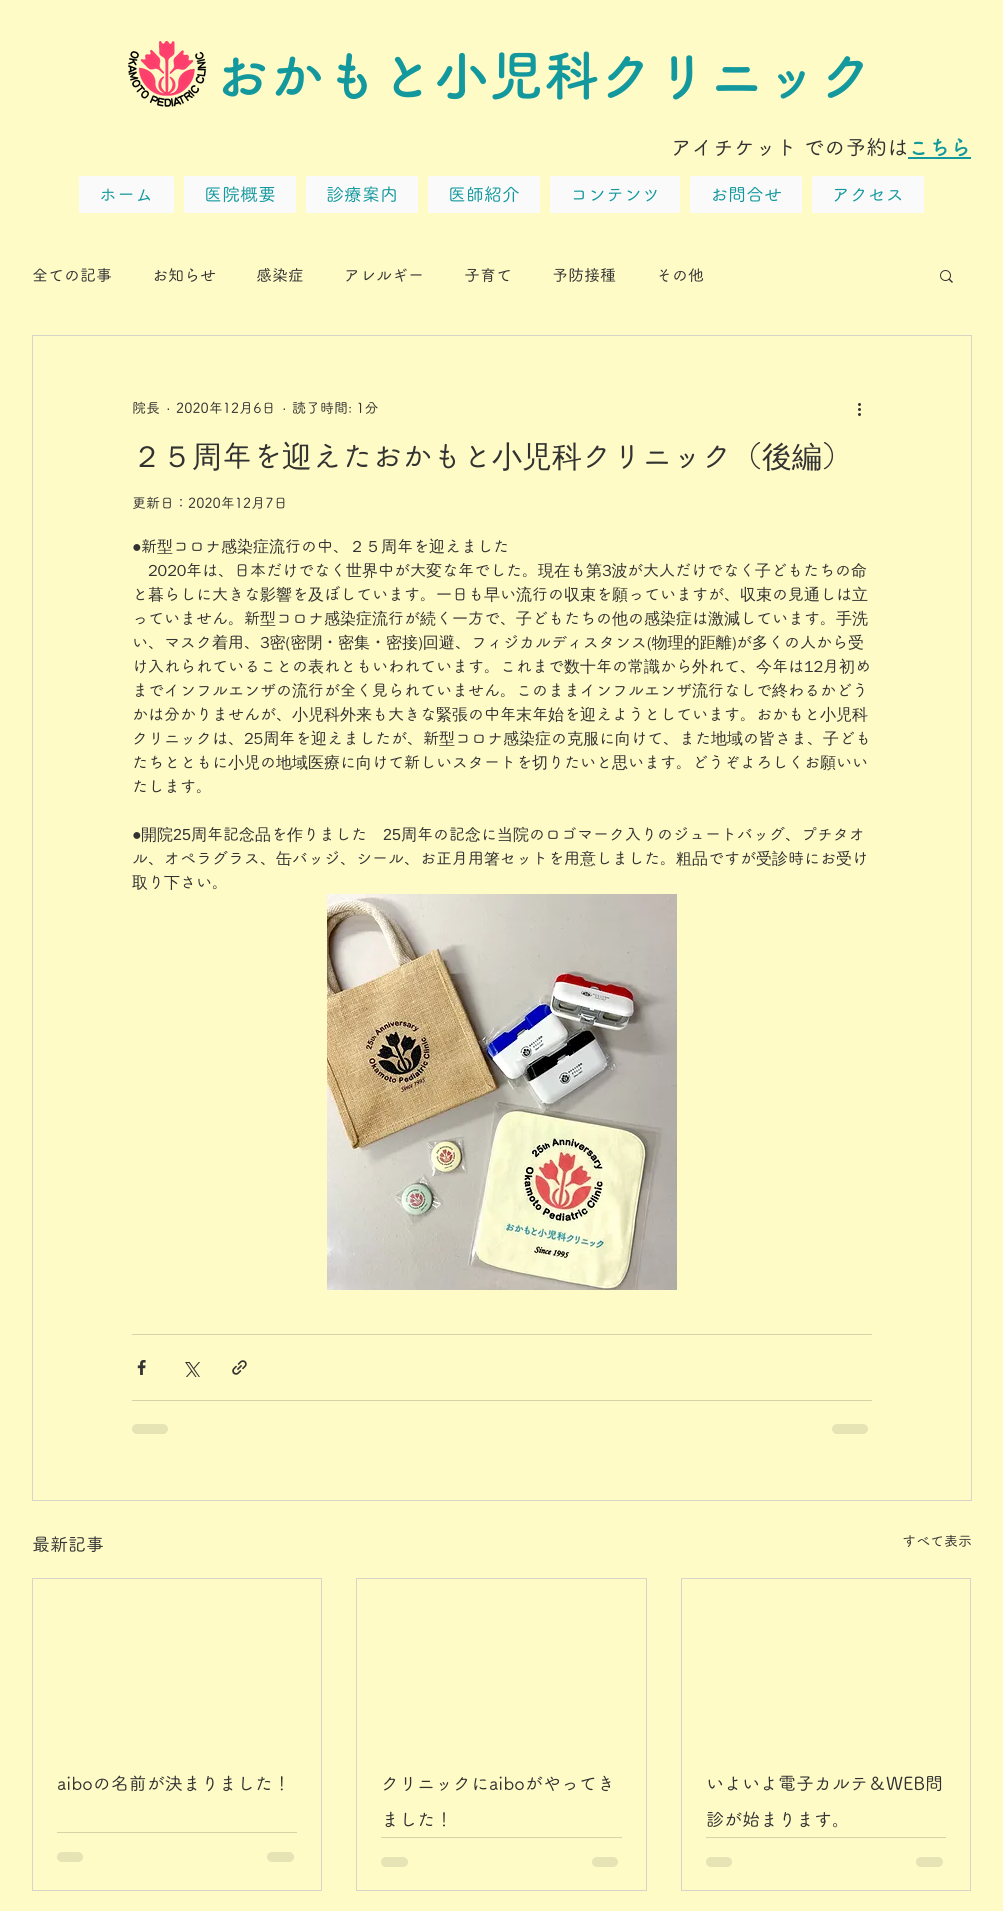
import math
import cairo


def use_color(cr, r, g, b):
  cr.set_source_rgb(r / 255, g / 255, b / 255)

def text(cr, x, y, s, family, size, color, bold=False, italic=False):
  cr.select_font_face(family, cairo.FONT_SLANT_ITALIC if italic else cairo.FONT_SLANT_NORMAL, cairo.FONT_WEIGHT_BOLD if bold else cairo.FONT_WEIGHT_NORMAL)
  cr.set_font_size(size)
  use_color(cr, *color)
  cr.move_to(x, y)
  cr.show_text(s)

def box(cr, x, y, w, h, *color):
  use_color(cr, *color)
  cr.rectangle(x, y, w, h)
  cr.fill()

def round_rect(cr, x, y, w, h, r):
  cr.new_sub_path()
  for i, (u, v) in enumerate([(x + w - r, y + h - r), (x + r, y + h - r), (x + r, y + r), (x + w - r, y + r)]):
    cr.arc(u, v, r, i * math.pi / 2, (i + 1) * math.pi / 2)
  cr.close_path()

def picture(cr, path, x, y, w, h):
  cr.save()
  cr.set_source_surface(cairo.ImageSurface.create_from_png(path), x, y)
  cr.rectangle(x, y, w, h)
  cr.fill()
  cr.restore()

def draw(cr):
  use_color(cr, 255, 251, 198)
  cr.paint()
  picture(cr, "img_01.png", 128, 41, 79, 66)
  box(cr, 908, 157, 63, 2, 18, 152, 157)
  use_color(cr, 250, 250, 250)
  round_rect(cr, 79, 176, 95, 37, 2)
  cr.fill()
  round_rect(cr, 184, 176, 112, 37, 2)
  cr.fill()
  round_rect(cr, 306, 176, 112, 37, 2)
  cr.fill()
  round_rect(cr, 428, 176, 112, 37, 2)
  cr.fill()
  round_rect(cr, 550, 176, 130, 37, 2)
  cr.fill()
  round_rect(cr, 690, 176, 112, 37, 2)
  cr.fill()
  round_rect(cr, 812, 176, 112, 37, 2)
  cr.fill()
  picture(cr, "img_02.png", 940, 270, 13, 13)
  cr.rectangle(32.5, 335.5, 939, 1165)
  use_color(cr, 214, 213, 200)
  cr.set_line_width(1)
  cr.stroke()
  picture(cr, "img_03.png", 858, 403, 3, 13)
  picture(cr, "img_04.png", 327, 894, 350, 396)
  box(cr, 132, 1334, 740, 1, 214, 211, 168)
  picture(cr, "img_05.png", 137, 1360, 9, 15)
  picture(cr, "img_06.png", 185, 1362, 15, 15)
  picture(cr, "img_07.png", 232, 1360, 15, 15)
  box(cr, 132, 1400, 740, 1, 214, 211, 168)
  use_color(cr, 230, 227, 180)
  round_rect(cr, 132, 1424, 36, 10, 5)
  cr.fill()
  round_rect(cr, 832, 1424, 36, 10, 5)
  cr.fill()
  cr.rectangle(32.5, 1578.5, 289, 312)
  use_color(cr, 214, 213, 200)
  cr.stroke()
  box(cr, 57, 1832, 240, 1, 214, 211, 168)
  use_color(cr, 230, 227, 180)
  round_rect(cr, 57, 1852, 26, 10, 5)
  cr.fill()
  round_rect(cr, 267, 1852, 27, 10, 5)
  cr.fill()
  cr.rectangle(356.5, 1578.5, 290, 312)
  use_color(cr, 214, 213, 200)
  cr.stroke()
  box(cr, 381, 1837, 241, 1, 214, 211, 168)
  use_color(cr, 230, 227, 180)
  round_rect(cr, 381, 1857, 27, 10, 5)
  cr.fill()
  round_rect(cr, 592, 1857, 26, 10, 5)
  cr.fill()
  cr.rectangle(681.5, 1578.5, 289, 312)
  use_color(cr, 214, 213, 200)
  cr.stroke()
  box(cr, 706, 1837, 240, 1, 214, 211, 168)
  use_color(cr, 230, 227, 180)
  round_rect(cr, 706, 1857, 26, 10, 5)
  cr.fill()
  round_rect(cr, 916, 1857, 27, 10, 5)
  cr.fill()
  text(cr, 214, 96, "おかもと小児科クリニック", "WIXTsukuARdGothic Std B", 55, (18, 152, 157), bold=True)
  text(cr, 671, 155, "アイチケット での予約は", "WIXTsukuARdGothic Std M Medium", 21, (50, 50, 50))
  text(cr, 908, 155, "こちら", "WIXTsukuARdGothic Std B", 21, (18, 152, 157), bold=True)
  text(cr, 99, 201, "ホーム", "WIXTsukuARdGothic Std M Medium", 18, (18, 152, 157))
  text(cr, 204, 201, "医院概要", "WIXTsukuARdGothic Std M Medium", 18, (18, 152, 157))
  text(cr, 326, 201, "診療案内", "WIXTsukuARdGothic Std M Medium", 18, (18, 152, 157))
  text(cr, 448, 201, "医師紹介", "WIXTsukuARdGothic Std M Medium", 18, (18, 152, 157))
  text(cr, 570, 201, "コンテンツ", "WIXTsukuARdGothic Std M Medium", 18, (18, 152, 157))
  text(cr, 710, 201, "お問合せ", "WIXTsukuARdGothic Std M Medium", 18, (18, 152, 157))
  text(cr, 832, 201, "アクセス", "WIXTsukuARdGothic Std M Medium", 18, (18, 152, 157))
  text(cr, 32, 281, "全ての記事", "WIXTsukuARdGothic Std M Medium", 16, (50, 50, 50))
  text(cr, 152, 281, "お知らせ", "WIXTsukuARdGothic Std M Medium", 16, (50, 50, 50))
  text(cr, 256, 281, "感染症", "WIXTsukuARdGothic Std M Medium", 16, (50, 50, 50))
  text(cr, 344, 281, "アレルギー", "WIXTsukuARdGothic Std M Medium", 16, (50, 50, 50))
  text(cr, 464, 281, "子育て", "WIXTsukuARdGothic Std M Medium", 16, (50, 50, 50))
  text(cr, 552, 281, "予防接種", "WIXTsukuARdGothic Std M Medium", 16, (50, 50, 50))
  text(cr, 656, 281, "その他", "WIXTsukuARdGothic Std M Medium", 16, (50, 50, 50))
  text(cr, 132, 413, "院長", "WIXTsukuARdGothic Std M Medium", 14, (50, 50, 50))
  text(cr, 166, 413, "·", "Liberation Sans", 14, (50, 50, 50))
  text(cr, 176, 413, "2020年12月6日", "WIXTsukuARdGothic Std M Medium", 14, (50, 50, 50))
  text(cr, 282, 413, "·", "Liberation Sans", 14, (50, 50, 50))
  text(cr, 292, 413, "読了時間: 1分", "WIXTsukuARdGothic Std M Medium", 14, (50, 50, 50))
  text(cr, 132, 467, "２５周", "WenQuanYi Zen Hei Medium", 30, (50, 50, 50))
  text(cr, 222, 467, "年を", "WIXTsukuARdGothic Std M Medium", 30, (50, 50, 50))
  text(cr, 282, 467, "迎", "WenQuanYi Zen Hei Medium", 30, (50, 50, 50))
  text(cr, 312, 467, "えたおかもと", "WIXTsukuARdGothic Std M Medium", 30, (50, 50, 50))
  text(cr, 492, 467, "小児科", "WenQuanYi Zen Hei Medium", 30, (50, 50, 50))
  text(cr, 582, 467, "クリニック（", "WIXTsukuARdGothic Std M Medium", 30, (50, 50, 50))
  text(cr, 762, 467, "後編", "WenQuanYi Zen Hei Medium", 30, (50, 50, 50))
  text(cr, 822, 467, "）", "WIXTsukuARdGothic Std M Medium", 30, (50, 50, 50))
  text(cr, 132, 508, "更新日：2020年12月7日", "WIXTsukuARdGothic Std M Medium", 14, (50, 50, 50))
  text(cr, 132, 552, "●", "Liberation Sans", 16, (50, 50, 50))
  text(cr, 141, 552, "新", "WIXTsukuARdGothic Std M Medium", 16, (50, 50, 50))
  text(cr, 157, 552, "型", "WenQuanYi Zen Hei Medium", 16, (50, 50, 50))
  text(cr, 173, 552, "コロナ", "WIXTsukuARdGothic Std M Medium", 16, (50, 50, 50))
  text(cr, 221, 552, "感染症流", "WenQuanYi Zen Hei Medium", 16, (50, 50, 50))
  text(cr, 285, 552, "行の中、", "WIXTsukuARdGothic Std M Medium", 16, (50, 50, 50))
  text(cr, 349, 552, "２５周", "WenQuanYi Zen Hei Medium", 16, (50, 50, 50))
  text(cr, 397, 552, "年を", "WIXTsukuARdGothic Std M Medium", 16, (50, 50, 50))
  text(cr, 429, 552, "迎", "WenQuanYi Zen Hei Medium", 16, (50, 50, 50))
  text(cr, 445, 552, "えました", "WIXTsukuARdGothic Std M Medium", 16, (50, 50, 50))
  text(cr, 148, 576, "2020", "WenQuanYi Zen Hei Medium", 16, (50, 50, 50))
  text(cr, 186, 576, "年は、日本だけでなく", "WIXTsukuARdGothic Std M Medium", 16, (50, 50, 50))
  text(cr, 346, 576, "世界", "WenQuanYi Zen Hei Medium", 16, (50, 50, 50))
  text(cr, 378, 576, "中が大", "WIXTsukuARdGothic Std M Medium", 16, (50, 50, 50))
  text(cr, 426, 576, "変", "WenQuanYi Zen Hei Medium", 16, (50, 50, 50))
  text(cr, 442, 576, "な年でした。", "WIXTsukuARdGothic Std M Medium", 16, (50, 50, 50))
  text(cr, 538, 576, "現在", "WenQuanYi Zen Hei Medium", 16, (50, 50, 50))
  text(cr, 570, 576, "も", "WIXTsukuARdGothic Std M Medium", 16, (50, 50, 50))
  text(cr, 586, 576, "第3波", "WenQuanYi Zen Hei Medium", 16, (50, 50, 50))
  text(cr, 627, 576, "が大人だけでなく", "WIXTsukuARdGothic Std M Medium", 16, (50, 50, 50))
  text(cr, 755, 576, "子", "WenQuanYi Zen Hei Medium", 16, (50, 50, 50))
  text(cr, 771, 576, "どもたちの", "WIXTsukuARdGothic Std M Medium", 16, (50, 50, 50))
  text(cr, 851, 576, "命", "WenQuanYi Zen Hei Medium", 16, (50, 50, 50))
  text(cr, 132, 600, "と", "WIXTsukuARdGothic Std M Medium", 16, (50, 50, 50))
  text(cr, 148, 600, "暮", "WenQuanYi Zen Hei Medium", 16, (50, 50, 50))
  text(cr, 164, 600, "らしに大きな", "WIXTsukuARdGothic Std M Medium", 16, (50, 50, 50))
  text(cr, 260, 600, "影響", "WenQuanYi Zen Hei Medium", 16, (50, 50, 50))
  text(cr, 292, 600, "を", "WIXTsukuARdGothic Std M Medium", 16, (50, 50, 50))
  text(cr, 308, 600, "及", "WenQuanYi Zen Hei Medium", 16, (50, 50, 50))
  text(cr, 324, 600, "ぼしています。一日も", "WIXTsukuARdGothic Std M Medium", 16, (50, 50, 50))
  text(cr, 484, 600, "早", "WenQuanYi Zen Hei Medium", 16, (50, 50, 50))
  text(cr, 500, 600, "い", "WIXTsukuARdGothic Std M Medium", 16, (50, 50, 50))
  text(cr, 516, 600, "流", "WenQuanYi Zen Hei Medium", 16, (50, 50, 50))
  text(cr, 532, 600, "行の", "WIXTsukuARdGothic Std M Medium", 16, (50, 50, 50))
  text(cr, 564, 600, "収束", "WenQuanYi Zen Hei Medium", 16, (50, 50, 50))
  text(cr, 596, 600, "を", "WIXTsukuARdGothic Std M Medium", 16, (50, 50, 50))
  text(cr, 612, 600, "願", "WenQuanYi Zen Hei Medium", 16, (50, 50, 50))
  text(cr, 628, 600, "っていますが、", "WIXTsukuARdGothic Std M Medium", 16, (50, 50, 50))
  text(cr, 740, 600, "収束", "WenQuanYi Zen Hei Medium", 16, (50, 50, 50))
  text(cr, 772, 600, "の見", "WIXTsukuARdGothic Std M Medium", 16, (50, 50, 50))
  text(cr, 804, 600, "通", "WenQuanYi Zen Hei Medium", 16, (50, 50, 50))
  text(cr, 820, 600, "しは", "WIXTsukuARdGothic Std M Medium", 16, (50, 50, 50))
  text(cr, 852, 600, "立", "WenQuanYi Zen Hei Medium", 16, (50, 50, 50))
  text(cr, 132, 624, "っていません。新", "WIXTsukuARdGothic Std M Medium", 16, (50, 50, 50))
  text(cr, 260, 624, "型", "WenQuanYi Zen Hei Medium", 16, (50, 50, 50))
  text(cr, 276, 624, "コロナ", "WIXTsukuARdGothic Std M Medium", 16, (50, 50, 50))
  text(cr, 324, 624, "感染症流", "WenQuanYi Zen Hei Medium", 16, (50, 50, 50))
  text(cr, 388, 624, "行が", "WIXTsukuARdGothic Std M Medium", 16, (50, 50, 50))
  text(cr, 420, 624, "続", "WenQuanYi Zen Hei Medium", 16, (50, 50, 50))
  text(cr, 436, 624, "く一方で、", "WIXTsukuARdGothic Std M Medium", 16, (50, 50, 50))
  text(cr, 516, 624, "子", "WenQuanYi Zen Hei Medium", 16, (50, 50, 50))
  text(cr, 532, 624, "どもたちの", "WIXTsukuARdGothic Std M Medium", 16, (50, 50, 50))
  text(cr, 612, 624, "他", "WenQuanYi Zen Hei Medium", 16, (50, 50, 50))
  text(cr, 628, 624, "の", "WIXTsukuARdGothic Std M Medium", 16, (50, 50, 50))
  text(cr, 644, 624, "感染症", "WenQuanYi Zen Hei Medium", 16, (50, 50, 50))
  text(cr, 692, 624, "は", "WIXTsukuARdGothic Std M Medium", 16, (50, 50, 50))
  text(cr, 708, 624, "激減", "WenQuanYi Zen Hei Medium", 16, (50, 50, 50))
  text(cr, 740, 624, "しています。", "WIXTsukuARdGothic Std M Medium", 16, (50, 50, 50))
  text(cr, 836, 624, "手洗", "WenQuanYi Zen Hei Medium", 16, (50, 50, 50))
  text(cr, 132, 648, "い、マスク", "WIXTsukuARdGothic Std M Medium", 16, (50, 50, 50))
  text(cr, 212, 648, "着", "WenQuanYi Zen Hei Medium", 16, (50, 50, 50))
  text(cr, 228, 648, "用、", "WIXTsukuARdGothic Std M Medium", 16, (50, 50, 50))
  text(cr, 260, 648, "3密(密閉", "WenQuanYi Zen Hei Medium", 16, (50, 50, 50))
  text(cr, 322, 648, "・", "WIXTsukuARdGothic Std M Medium", 16, (50, 50, 50))
  text(cr, 338, 648, "密集", "WenQuanYi Zen Hei Medium", 16, (50, 50, 50))
  text(cr, 370, 648, "・", "WIXTsukuARdGothic Std M Medium", 16, (50, 50, 50))
  text(cr, 386, 648, "密接)回避", "WenQuanYi Zen Hei Medium", 16, (50, 50, 50))
  text(cr, 455, 648, "、フィジカルディスタンス", "WIXTsukuARdGothic Std M Medium", 16, (50, 50, 50))
  text(cr, 647, 648, "(物理的距離)", "WenQuanYi Zen Hei Medium", 16, (50, 50, 50))
  text(cr, 736, 648, "が", "WIXTsukuARdGothic Std M Medium", 16, (50, 50, 50))
  text(cr, 752, 648, "多", "WenQuanYi Zen Hei Medium", 16, (50, 50, 50))
  text(cr, 768, 648, "くの人から", "WIXTsukuARdGothic Std M Medium", 16, (50, 50, 50))
  text(cr, 848, 648, "受", "WenQuanYi Zen Hei Medium", 16, (50, 50, 50))
  text(cr, 132, 672, "け入れられていることの", "WIXTsukuARdGothic Std M Medium", 16, (50, 50, 50))
  text(cr, 308, 672, "表", "WenQuanYi Zen Hei Medium", 16, (50, 50, 50))
  text(cr, 324, 672, "れともいわれています。これまで", "WIXTsukuARdGothic Std M Medium", 16, (50, 50, 50))
  text(cr, 564, 672, "数十", "WenQuanYi Zen Hei Medium", 16, (50, 50, 50))
  text(cr, 596, 672, "年の", "WIXTsukuARdGothic Std M Medium", 16, (50, 50, 50))
  text(cr, 628, 672, "常識", "WenQuanYi Zen Hei Medium", 16, (50, 50, 50))
  text(cr, 660, 672, "から", "WIXTsukuARdGothic Std M Medium", 16, (50, 50, 50))
  text(cr, 692, 672, "外", "WenQuanYi Zen Hei Medium", 16, (50, 50, 50))
  text(cr, 708, 672, "れて、", "WIXTsukuARdGothic Std M Medium", 16, (50, 50, 50))
  text(cr, 756, 672, "今", "WenQuanYi Zen Hei Medium", 16, (50, 50, 50))
  text(cr, 772, 672, "年は", "WIXTsukuARdGothic Std M Medium", 16, (50, 50, 50))
  text(cr, 804, 672, "12", "WenQuanYi Zen Hei Medium", 16, (50, 50, 50))
  text(cr, 823, 672, "月", "WIXTsukuARdGothic Std M Medium", 16, (50, 50, 50))
  text(cr, 839, 672, "初", "WenQuanYi Zen Hei Medium", 16, (50, 50, 50))
  text(cr, 855, 672, "め", "WIXTsukuARdGothic Std M Medium", 16, (50, 50, 50))
  text(cr, 132, 696, "までインフルエンザの", "WIXTsukuARdGothic Std M Medium", 16, (50, 50, 50))
  text(cr, 292, 696, "流", "WenQuanYi Zen Hei Medium", 16, (50, 50, 50))
  text(cr, 308, 696, "行が全く見られていません。このままインフルエンザ", "WIXTsukuARdGothic Std M Medium", 16, (50, 50, 50))
  text(cr, 692, 696, "流", "WenQuanYi Zen Hei Medium", 16, (50, 50, 50))
  text(cr, 708, 696, "行なしで", "WIXTsukuARdGothic Std M Medium", 16, (50, 50, 50))
  text(cr, 772, 696, "終", "WenQuanYi Zen Hei Medium", 16, (50, 50, 50))
  text(cr, 788, 696, "わるかどう", "WIXTsukuARdGothic Std M Medium", 16, (50, 50, 50))
  text(cr, 132, 720, "かは分かりませんが、", "WIXTsukuARdGothic Std M Medium", 16, (50, 50, 50))
  text(cr, 292, 720, "小児科外来", "WenQuanYi Zen Hei Medium", 16, (50, 50, 50))
  text(cr, 372, 720, "も大きな", "WIXTsukuARdGothic Std M Medium", 16, (50, 50, 50))
  text(cr, 436, 720, "緊張", "WenQuanYi Zen Hei Medium", 16, (50, 50, 50))
  text(cr, 468, 720, "の中年", "WIXTsukuARdGothic Std M Medium", 16, (50, 50, 50))
  text(cr, 516, 720, "末", "WenQuanYi Zen Hei Medium", 16, (50, 50, 50))
  text(cr, 532, 720, "年", "WIXTsukuARdGothic Std M Medium", 16, (50, 50, 50))
  text(cr, 548, 720, "始", "WenQuanYi Zen Hei Medium", 16, (50, 50, 50))
  text(cr, 564, 720, "を", "WIXTsukuARdGothic Std M Medium", 16, (50, 50, 50))
  text(cr, 580, 720, "迎", "WenQuanYi Zen Hei Medium", 16, (50, 50, 50))
  text(cr, 596, 720, "えようとしています。おかもと", "WIXTsukuARdGothic Std M Medium", 16, (50, 50, 50))
  text(cr, 820, 720, "小児科", "WenQuanYi Zen Hei Medium", 16, (50, 50, 50))
  text(cr, 132, 744, "クリニックは、", "WIXTsukuARdGothic Std M Medium", 16, (50, 50, 50))
  text(cr, 244, 744, "25周", "WenQuanYi Zen Hei Medium", 16, (50, 50, 50))
  text(cr, 279, 744, "年を", "WIXTsukuARdGothic Std M Medium", 16, (50, 50, 50))
  text(cr, 311, 744, "迎", "WenQuanYi Zen Hei Medium", 16, (50, 50, 50))
  text(cr, 327, 744, "えましたが、新", "WIXTsukuARdGothic Std M Medium", 16, (50, 50, 50))
  text(cr, 439, 744, "型", "WenQuanYi Zen Hei Medium", 16, (50, 50, 50))
  text(cr, 455, 744, "コロナ", "WIXTsukuARdGothic Std M Medium", 16, (50, 50, 50))
  text(cr, 503, 744, "感染症", "WenQuanYi Zen Hei Medium", 16, (50, 50, 50))
  text(cr, 551, 744, "の", "WIXTsukuARdGothic Std M Medium", 16, (50, 50, 50))
  text(cr, 567, 744, "克服", "WenQuanYi Zen Hei Medium", 16, (50, 50, 50))
  text(cr, 599, 744, "に", "WIXTsukuARdGothic Std M Medium", 16, (50, 50, 50))
  text(cr, 615, 744, "向", "WenQuanYi Zen Hei Medium", 16, (50, 50, 50))
  text(cr, 631, 744, "けて、また", "WIXTsukuARdGothic Std M Medium", 16, (50, 50, 50))
  text(cr, 711, 744, "地域", "WenQuanYi Zen Hei Medium", 16, (50, 50, 50))
  text(cr, 743, 744, "の", "WIXTsukuARdGothic Std M Medium", 16, (50, 50, 50))
  text(cr, 759, 744, "皆", "WenQuanYi Zen Hei Medium", 16, (50, 50, 50))
  text(cr, 775, 744, "さま、", "WIXTsukuARdGothic Std M Medium", 16, (50, 50, 50))
  text(cr, 823, 744, "子", "WenQuanYi Zen Hei Medium", 16, (50, 50, 50))
  text(cr, 839, 744, "ども", "WIXTsukuARdGothic Std M Medium", 16, (50, 50, 50))
  text(cr, 132, 768, "たちとともに", "WIXTsukuARdGothic Std M Medium", 16, (50, 50, 50))
  text(cr, 228, 768, "小児", "WenQuanYi Zen Hei Medium", 16, (50, 50, 50))
  text(cr, 260, 768, "の", "WIXTsukuARdGothic Std M Medium", 16, (50, 50, 50))
  text(cr, 276, 768, "地域医療", "WenQuanYi Zen Hei Medium", 16, (50, 50, 50))
  text(cr, 340, 768, "に", "WIXTsukuARdGothic Std M Medium", 16, (50, 50, 50))
  text(cr, 356, 768, "向", "WenQuanYi Zen Hei Medium", 16, (50, 50, 50))
  text(cr, 372, 768, "けて新しいスタートを", "WIXTsukuARdGothic Std M Medium", 16, (50, 50, 50))
  text(cr, 532, 768, "切", "WenQuanYi Zen Hei Medium", 16, (50, 50, 50))
  text(cr, 548, 768, "りたいと", "WIXTsukuARdGothic Std M Medium", 16, (50, 50, 50))
  text(cr, 612, 768, "思", "WenQuanYi Zen Hei Medium", 16, (50, 50, 50))
  text(cr, 628, 768, "います。どうぞよろしくお", "WIXTsukuARdGothic Std M Medium", 16, (50, 50, 50))
  text(cr, 820, 768, "願", "WenQuanYi Zen Hei Medium", 16, (50, 50, 50))
  text(cr, 836, 768, "いい", "WIXTsukuARdGothic Std M Medium", 16, (50, 50, 50))
  text(cr, 132, 792, "たします。", "WIXTsukuARdGothic Std M Medium", 16, (50, 50, 50))
  text(cr, 132, 840, "●", "Liberation Sans", 16, (50, 50, 50))
  text(cr, 141, 840, "開院", "WenQuanYi Zen Hei Medium", 16, (50, 50, 50))
  text(cr, 173, 840, "25", "Liberation Sans", 16, (50, 50, 50))
  text(cr, 191, 840, "周", "WenQuanYi Zen Hei Medium", 16, (50, 50, 50))
  text(cr, 207, 840, "年記", "WIXTsukuARdGothic Std M Medium", 16, (50, 50, 50))
  text(cr, 239, 840, "念品", "WenQuanYi Zen Hei Medium", 16, (50, 50, 50))
  text(cr, 271, 840, "を", "WIXTsukuARdGothic Std M Medium", 16, (50, 50, 50))
  text(cr, 287, 840, "作", "WenQuanYi Zen Hei Medium", 16, (50, 50, 50))
  text(cr, 303, 840, "りました", "WIXTsukuARdGothic Std M Medium", 16, (50, 50, 50))
  text(cr, 383, 840, "25", "Liberation Sans", 16, (50, 50, 50))
  text(cr, 401, 840, "周", "WenQuanYi Zen Hei Medium", 16, (50, 50, 50))
  text(cr, 417, 840, "年の記", "WIXTsukuARdGothic Std M Medium", 16, (50, 50, 50))
  text(cr, 465, 840, "念", "WenQuanYi Zen Hei Medium", 16, (50, 50, 50))
  text(cr, 481, 840, "に", "WIXTsukuARdGothic Std M Medium", 16, (50, 50, 50))
  text(cr, 497, 840, "当院", "WenQuanYi Zen Hei Medium", 16, (50, 50, 50))
  text(cr, 529, 840, "のロゴマーク入りのジュートバッグ、プチタオ", "WIXTsukuARdGothic Std M Medium", 16, (50, 50, 50))
  text(cr, 132, 864, "ル、オペラグラス、", "WIXTsukuARdGothic Std M Medium", 16, (50, 50, 50))
  text(cr, 276, 864, "缶", "WenQuanYi Zen Hei Medium", 16, (50, 50, 50))
  text(cr, 292, 864, "バッジ、シール、お正月用", "WIXTsukuARdGothic Std M Medium", 16, (50, 50, 50))
  text(cr, 484, 864, "箸", "WenQuanYi Zen Hei Medium", 16, (50, 50, 50))
  text(cr, 500, 864, "セットを用", "WIXTsukuARdGothic Std M Medium", 16, (50, 50, 50))
  text(cr, 580, 864, "意", "WenQuanYi Zen Hei Medium", 16, (50, 50, 50))
  text(cr, 596, 864, "しました。", "WIXTsukuARdGothic Std M Medium", 16, (50, 50, 50))
  text(cr, 676, 864, "粗品", "WenQuanYi Zen Hei Medium", 16, (50, 50, 50))
  text(cr, 708, 864, "ですが", "WIXTsukuARdGothic Std M Medium", 16, (50, 50, 50))
  text(cr, 756, 864, "受診", "WenQuanYi Zen Hei Medium", 16, (50, 50, 50))
  text(cr, 788, 864, "時にお", "WIXTsukuARdGothic Std M Medium", 16, (50, 50, 50))
  text(cr, 836, 864, "受", "WenQuanYi Zen Hei Medium", 16, (50, 50, 50))
  text(cr, 852, 864, "け", "WIXTsukuARdGothic Std M Medium", 16, (50, 50, 50))
  text(cr, 132, 888, "取", "WenQuanYi Zen Hei Medium", 16, (50, 50, 50))
  text(cr, 148, 888, "り", "WIXTsukuARdGothic Std M Medium", 16, (50, 50, 50))
  text(cr, 164, 888, "下", "WenQuanYi Zen Hei Medium", 16, (50, 50, 50))
  text(cr, 180, 888, "さい。", "WIXTsukuARdGothic Std M Medium", 16, (50, 50, 50))
  text(cr, 32, 1551, "最新記事", "WIXTsukuARdGothic Std M Medium", 18, (50, 50, 50))
  text(cr, 902, 1546, "すべて表示", "WIXTsukuARdGothic Std M Medium", 14, (50, 50, 50))
  text(cr, 57, 1790, "aiboの名前が決まりました！", "WIXTsukuARdGothic Std M Medium", 18, (50, 50, 50))
  text(cr, 381, 1790, "クリニックにaiboがやってき", "WIXTsukuARdGothic Std M Medium", 18, (50, 50, 50))
  text(cr, 381, 1826, "ました！", "WIXTsukuARdGothic Std M Medium", 18, (50, 50, 50))
  text(cr, 706, 1790, "いよいよ電子カルテ＆WEB問", "WIXTsukuARdGothic Std M Medium", 18, (50, 50, 50))
  text(cr, 706, 1826, "診が始まります。", "WIXTsukuARdGothic Std M Medium", 18, (50, 50, 50))


surface = cairo.ImageSurface(cairo.FORMAT_RGB24, 1003, 1911)
cr = cairo.Context(surface)
options = cairo.FontOptions()
options.set_hint_metrics(cairo.HINT_METRICS_OFF)
options.set_hint_style(cairo.HINT_STYLE_NONE)
cr.set_font_options(options)
cr.set_miter_limit(4)
draw(cr)
surface.write_to_png("out.png")
